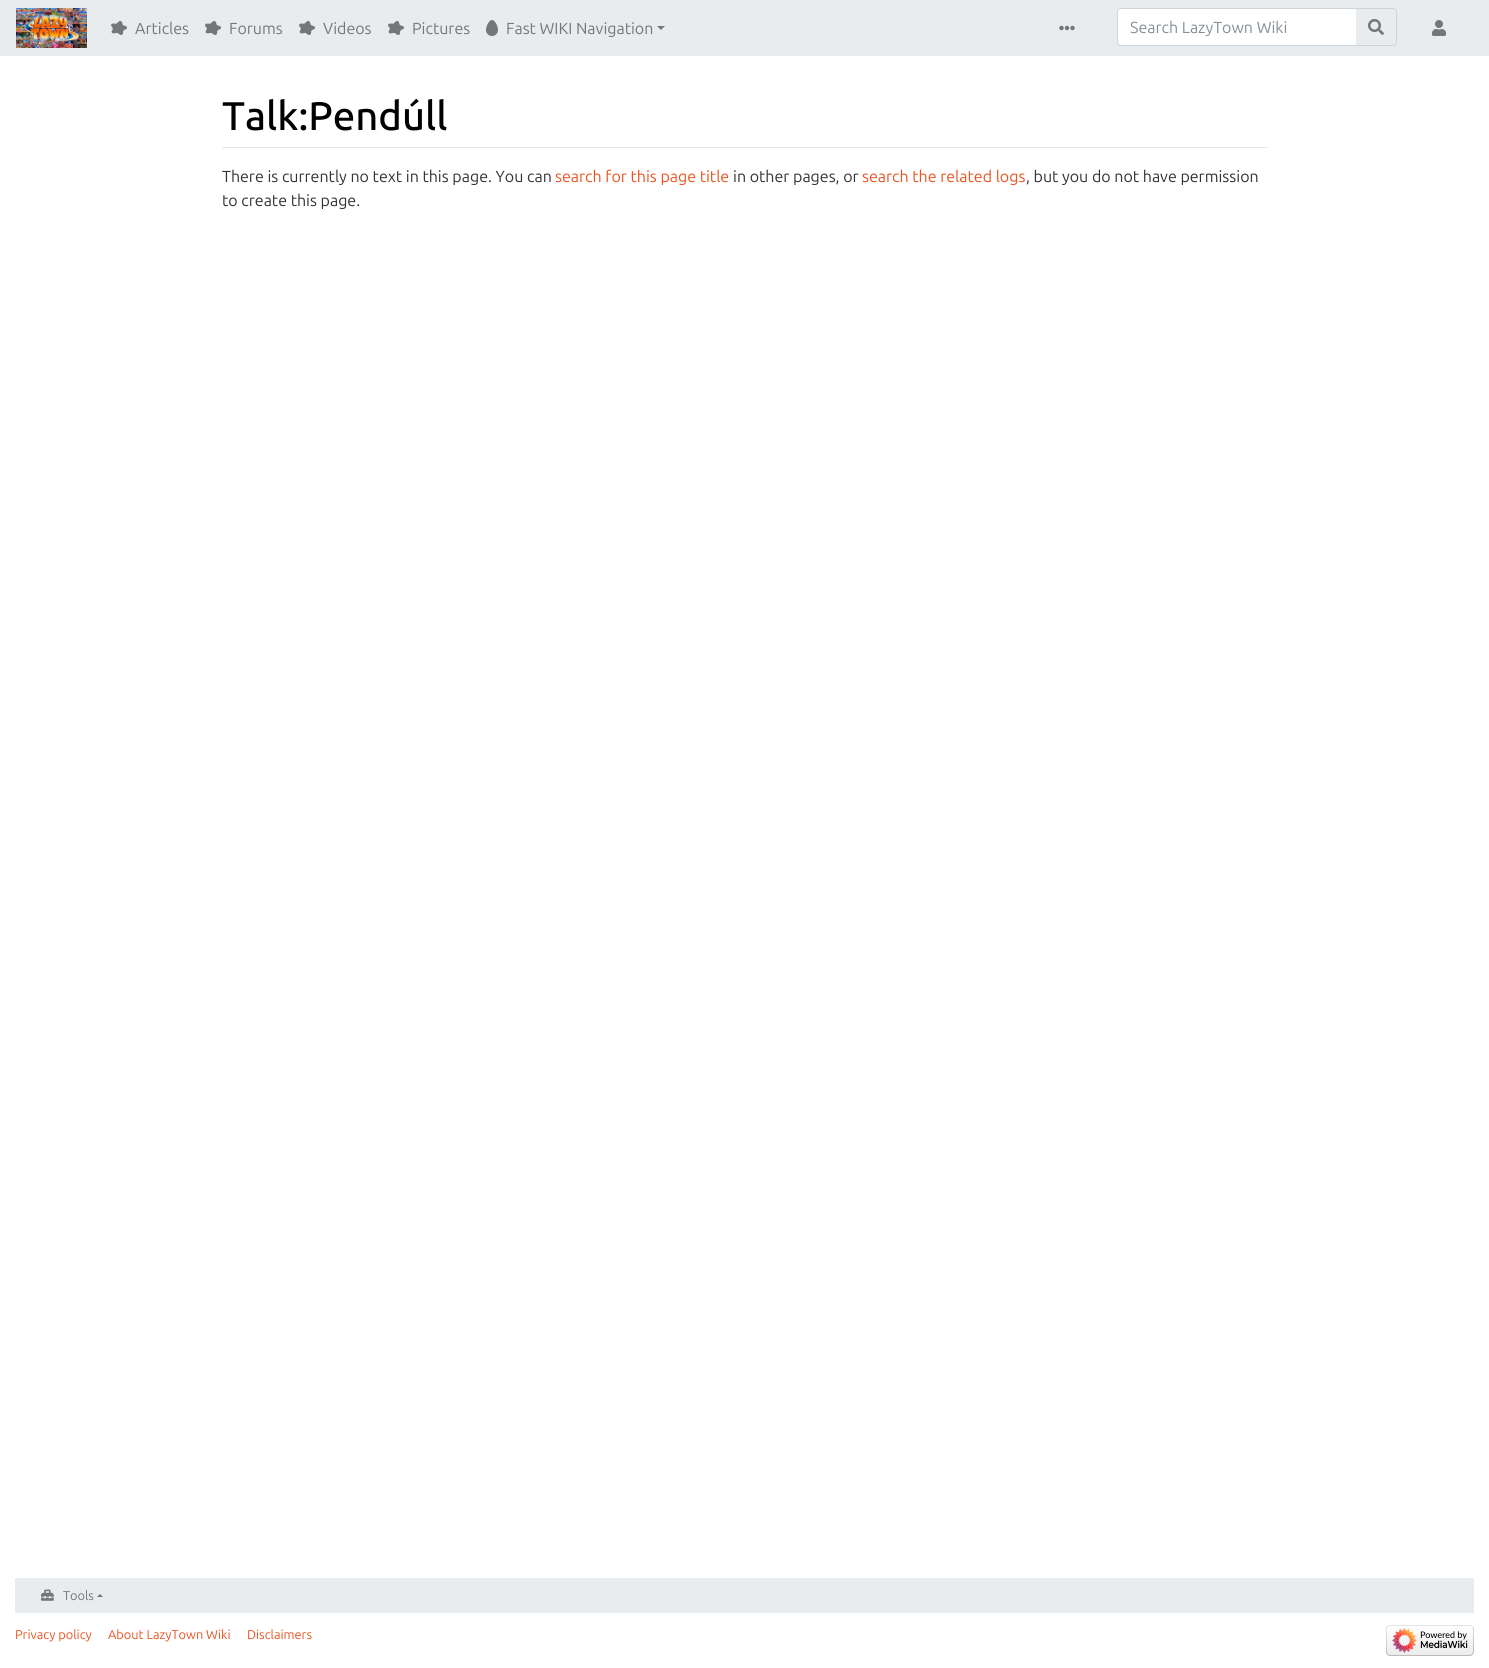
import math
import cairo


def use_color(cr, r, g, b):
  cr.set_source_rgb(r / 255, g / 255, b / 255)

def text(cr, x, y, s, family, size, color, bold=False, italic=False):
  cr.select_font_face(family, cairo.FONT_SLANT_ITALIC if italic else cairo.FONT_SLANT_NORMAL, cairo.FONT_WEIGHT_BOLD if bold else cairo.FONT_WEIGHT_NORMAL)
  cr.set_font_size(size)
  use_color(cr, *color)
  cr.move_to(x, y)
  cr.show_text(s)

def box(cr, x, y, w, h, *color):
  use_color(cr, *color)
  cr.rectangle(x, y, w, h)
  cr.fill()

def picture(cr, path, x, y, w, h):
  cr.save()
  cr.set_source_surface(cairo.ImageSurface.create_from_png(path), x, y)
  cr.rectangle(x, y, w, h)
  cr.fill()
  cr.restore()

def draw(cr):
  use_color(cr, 255, 255, 255)
  cr.paint()
  box(cr, 0, 0, 1489, 56, 233, 236, 239)
  picture(cr, "img_01.png", 16, 8, 71, 40)
  picture(cr, "img_02.png", 111, 21, 16, 14)
  picture(cr, "img_02.png", 205, 21, 16, 14)
  picture(cr, "img_02.png", 299, 21, 16, 14)
  picture(cr, "img_02.png", 388, 21, 16, 14)
  picture(cr, "img_03.png", 486, 20, 12, 16)
  use_color(cr, 117, 118, 120)
  cr.new_path()
  cr.move_to(657, 26)
  cr.line_to(665, 26)
  cr.line_to(661, 30)
  cr.close_path()
  cr.fill()
  picture(cr, "img_04.png", 1059, 25, 16, 6)
  use_color(cr, 255, 255, 255)
  cr.new_path()
  cr.move_to(1121, 8.5)
  cr.line_to(1356.5, 8.5)
  cr.line_to(1356.5, 45.5)
  cr.line_to(1121, 45.5)
  cr.curve_to(1119, 45.5, 1117.5, 44, 1117.5, 42)
  cr.line_to(1117.5, 12)
  cr.curve_to(1117.5, 10, 1119, 8.5, 1121, 8.5)
  cr.close_path()
  cr.fill_preserve()
  use_color(cr, 206, 212, 218)
  cr.set_line_width(1)
  cr.stroke()
  use_color(cr, 233, 236, 239)
  cr.new_path()
  cr.move_to(1356, 9)
  cr.line_to(1393, 9)
  cr.curve_to(1394.5, 9, 1396, 10.5, 1396, 12)
  cr.line_to(1396, 42)
  cr.curve_to(1396, 43.5, 1394.5, 45, 1393, 45)
  cr.line_to(1356, 45)
  cr.close_path()
  cr.fill()
  use_color(cr, 206, 212, 218)
  cr.set_fill_rule(cairo.FILL_RULE_EVEN_ODD)
  cr.new_path()
  cr.move_to(1356, 8)
  cr.line_to(1393, 8)
  cr.curve_to(1395, 8, 1397, 10, 1397, 12)
  cr.line_to(1397, 42)
  cr.curve_to(1397, 44, 1395, 46, 1393, 46)
  cr.line_to(1356, 46)
  cr.close_path()
  cr.move_to(1356, 9)
  cr.line_to(1393, 9)
  cr.curve_to(1395, 9, 1396, 10, 1396, 12)
  cr.line_to(1396, 42)
  cr.curve_to(1396, 44, 1395, 45, 1393, 45)
  cr.line_to(1356, 45)
  cr.close_path()
  cr.fill()
  picture(cr, "img_05.png", 1368, 19, 16, 16)
  picture(cr, "img_06.png", 1432, 20, 14, 16)
  box(cr, 222, 147, 1046, 1, 230, 230, 230)
  box(cr, 15, 1578, 1459, 35, 233, 236, 239)
  picture(cr, "img_07.png", 41, 1589, 13, 12)
  use_color(cr, 117, 118, 120)
  cr.set_fill_rule(cairo.FILL_RULE_WINDING)
  cr.new_path()
  cr.move_to(103, 1597)
  cr.line_to(97, 1597)
  cr.line_to(100, 1594)
  cr.close_path()
  cr.fill()
  picture(cr, "img_08.png", 1386, 1625, 88, 31)
  text(cr, 135, 34, "Articles", "Ubuntu", 16, (117, 118, 120))
  text(cr, 229, 34, "Forums", "Ubuntu", 16, (117, 118, 120))
  text(cr, 323, 34, "Videos", "Ubuntu", 16, (117, 118, 120))
  text(cr, 412, 34, "Pictures", "Ubuntu", 16, (117, 118, 120))
  text(cr, 506, 34, "Fast WIKI Navigation", "Ubuntu", 16, (117, 118, 120))
  text(cr, 1130, 33, "Search LazyTown Wiki", "Ubuntu", 16, (134, 142, 150))
  text(cr, 222, 130, "Talk:Pendúll", "Ubuntu Medium", 40, (0, 0, 0))
  text(cr, 222, 182, "There is currently no text in this page. You can", "Ubuntu", 16, (51, 51, 51))
  text(cr, 555, 182, "search for this page title", "Ubuntu", 16, (233, 84, 32))
  text(cr, 733, 182, "in other pages, or", "Ubuntu", 16, (51, 51, 51))
  text(cr, 862, 182, "search the related logs", "Ubuntu", 16, (233, 84, 32))
  text(cr, 1026, 182, ", but you do not have permission", "Ubuntu", 16, (51, 51, 51))
  text(cr, 222, 206, "to create this page.", "Ubuntu", 16, (51, 51, 51))
  text(cr, 63, 1600, "Tools", "Ubuntu", 12.75, (117, 118, 120))
  text(cr, 15, 1639, "Privacy policy", "Ubuntu", 12.75, (233, 84, 32))
  text(cr, 108, 1639, "About LazyTown Wiki", "Ubuntu", 12.75, (233, 84, 32))
  text(cr, 247, 1639, "Disclaimers", "Ubuntu", 12.75, (233, 84, 32))


surface = cairo.ImageSurface(cairo.FORMAT_RGB24, 1489, 1668)
cr = cairo.Context(surface)
options = cairo.FontOptions()
options.set_hint_metrics(cairo.HINT_METRICS_OFF)
options.set_hint_style(cairo.HINT_STYLE_NONE)
cr.set_font_options(options)
cr.set_miter_limit(4)
draw(cr)
surface.write_to_png("out.png")
